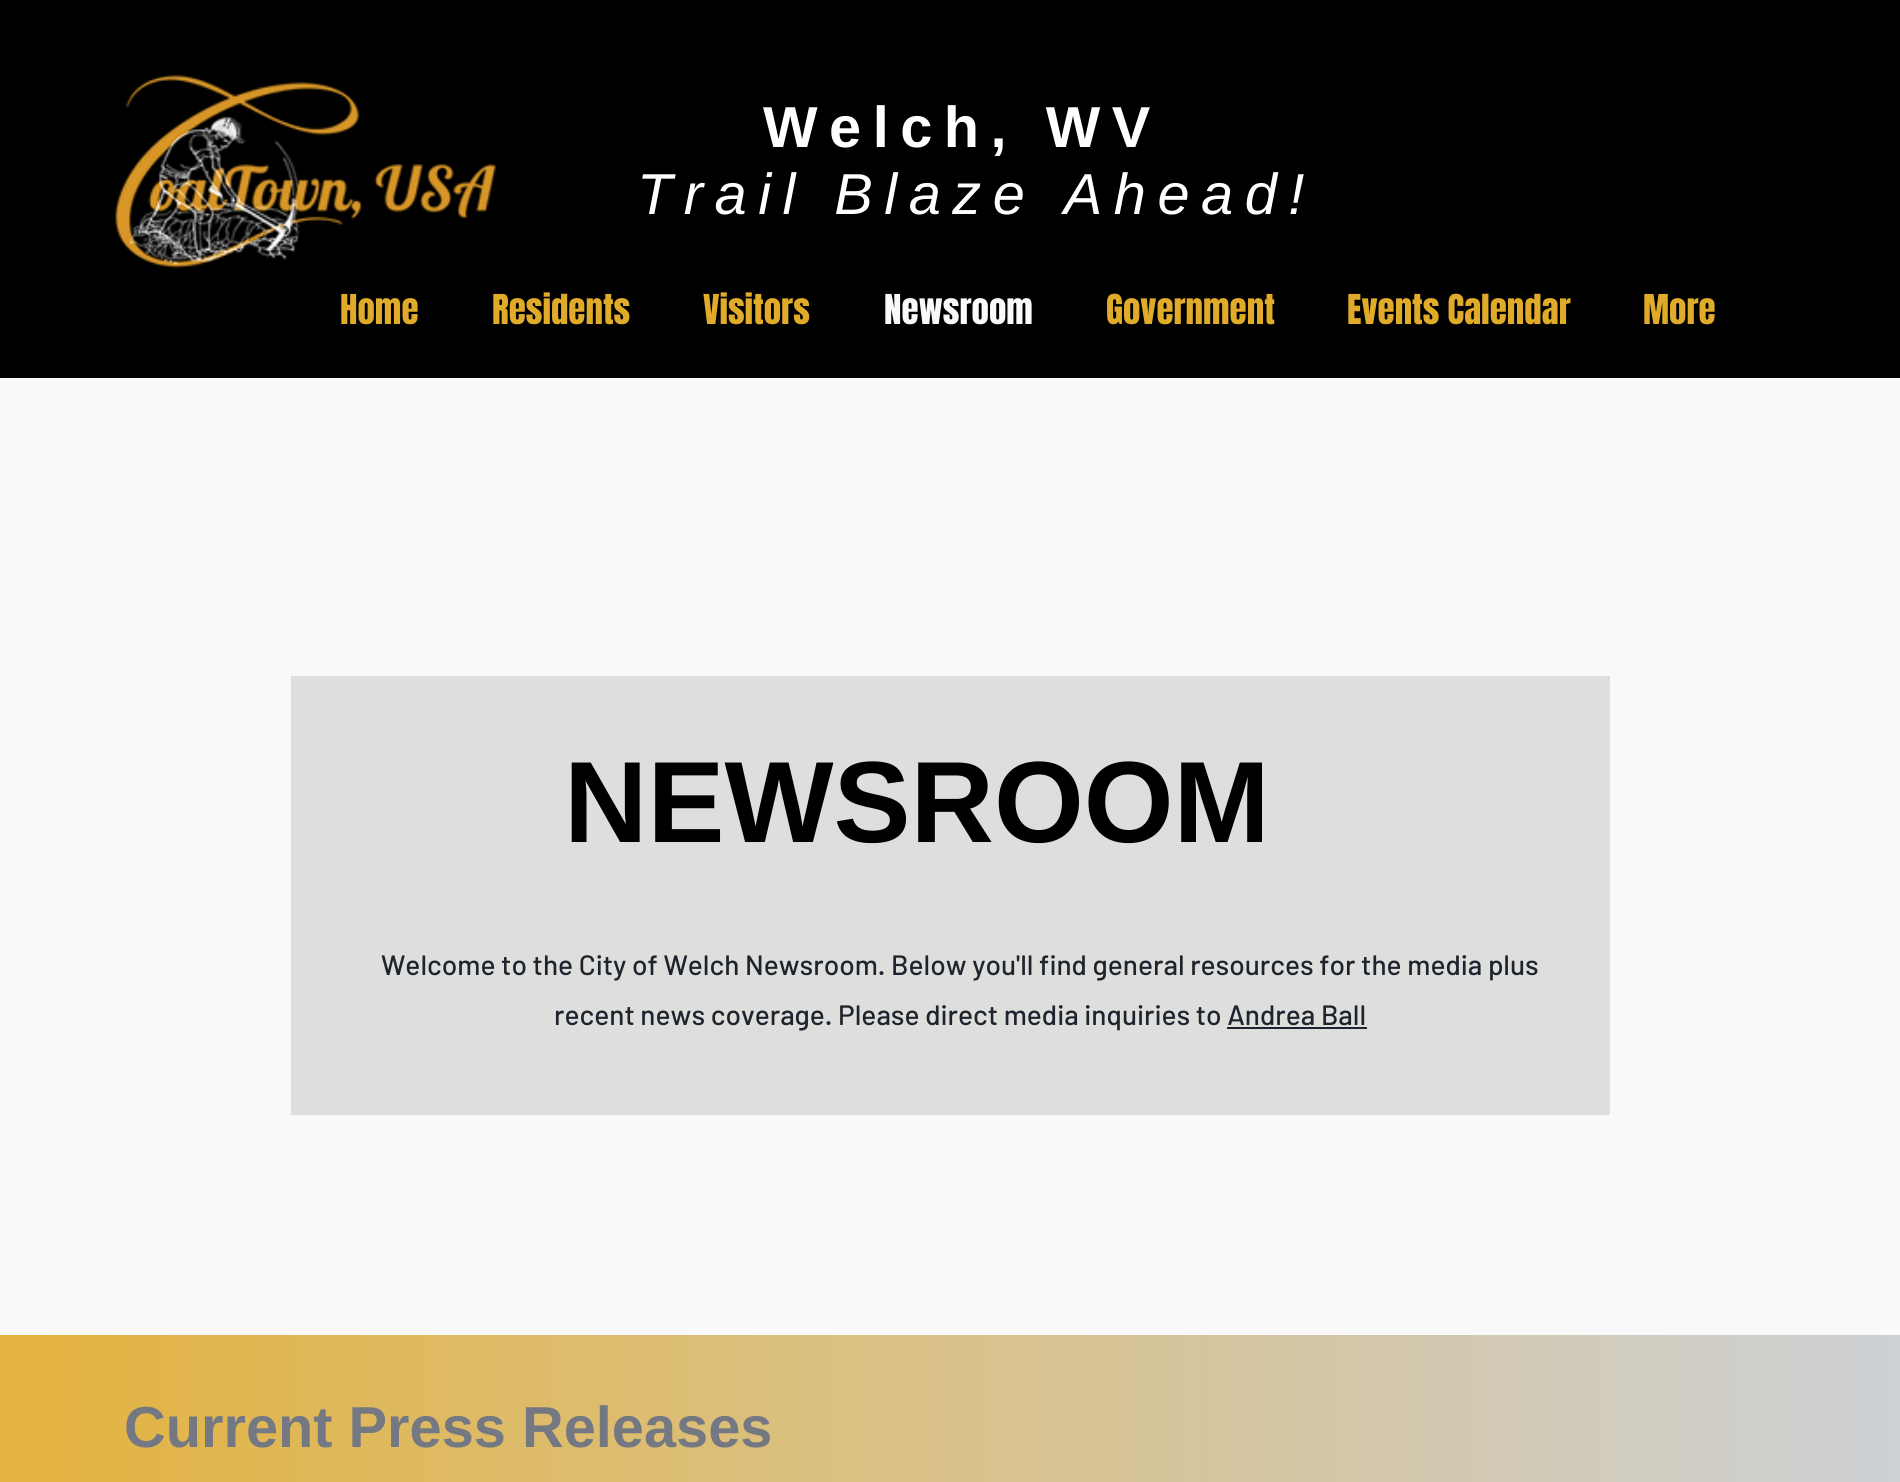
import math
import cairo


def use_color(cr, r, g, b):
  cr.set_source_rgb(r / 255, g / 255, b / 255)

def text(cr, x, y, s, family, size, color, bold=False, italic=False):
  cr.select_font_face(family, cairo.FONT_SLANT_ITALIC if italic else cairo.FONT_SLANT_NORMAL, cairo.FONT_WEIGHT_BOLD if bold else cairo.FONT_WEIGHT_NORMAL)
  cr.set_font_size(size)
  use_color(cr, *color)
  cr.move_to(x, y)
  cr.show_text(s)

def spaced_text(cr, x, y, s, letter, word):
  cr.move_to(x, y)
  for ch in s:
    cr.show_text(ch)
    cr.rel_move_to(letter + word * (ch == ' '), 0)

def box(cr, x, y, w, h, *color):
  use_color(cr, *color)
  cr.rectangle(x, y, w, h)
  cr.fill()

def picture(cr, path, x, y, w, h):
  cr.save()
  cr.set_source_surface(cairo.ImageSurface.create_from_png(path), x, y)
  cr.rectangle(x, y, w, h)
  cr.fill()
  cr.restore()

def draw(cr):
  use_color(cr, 249, 249, 249)
  cr.paint()
  box(cr, 0, 0, 1900, 378, 0, 0, 0)
  picture(cr, "img_01.png", 115, 74, 381, 195)
  box(cr, 291, 676, 1319, 439, 222, 222, 220)
  box(cr, 1227, 1027, 140, 2, 30, 36, 46)
  gradient = cairo.LinearGradient(0, 1467, 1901, 1467)
  gradient.add_color_stop_rgba(0, 0.894, 0.702, 0.247, 1)
  gradient.add_color_stop_rgba(1, 0.804, 0.816, 0.835, 1)
  cr.set_source(gradient)
  cr.rectangle(0, 1335, 1900, 147)
  cr.fill()
  cr.select_font_face("Liberation Sans", cairo.FONT_SLANT_NORMAL, cairo.FONT_WEIGHT_BOLD)
  cr.set_font_size(57.75)
  use_color(cr, 255, 255, 255)
  spaced_text(cr, 763, 147, "Welch, WV", 11.5, 0)
  cr.select_font_face("Liberation Sans", cairo.FONT_SLANT_ITALIC)
  spaced_text(cr, 637, 214, "Trail Blaze Ahead!", 11.5, 0)
  text(cr, 340, 324, "Home", "Anton", 35, (225, 171, 42))
  text(cr, 492, 324, "Residents", "Anton", 35, (225, 171, 42))
  text(cr, 703, 324, "Visitors", "Anton", 35, (225, 171, 42))
  text(cr, 884, 324, "Newsroom", "Anton", 35, (249, 249, 249))
  text(cr, 1106, 324, "Government", "Anton", 35, (225, 171, 42))
  text(cr, 1347, 324, "Events Calendar", "Anton", 35, (225, 171, 42))
  text(cr, 1643, 324, "More", "Anton", 35, (225, 171, 42))
  text(cr, 564, 842, "NEWSROOM", "Liberation Sans", 115.5, (0, 0, 0), bold=True)
  text(cr, 381, 975, "Welcome to the City of Welch Newsroom. Below you'll find general resources for the media plus", "Barlow Medium", 28, (30, 36, 46))
  text(cr, 554, 1025, "recent news coverage. Please direct media inquiries to Andrea Ball", "Barlow Medium", 28, (30, 36, 46))
  text(cr, 124, 1447, "Current Press Releases", "Liberation Sans", 57.75, (115, 120, 130), bold=True)


surface = cairo.ImageSurface(cairo.FORMAT_RGB24, 1900, 1482)
cr = cairo.Context(surface)
options = cairo.FontOptions()
options.set_hint_metrics(cairo.HINT_METRICS_OFF)
options.set_hint_style(cairo.HINT_STYLE_NONE)
cr.set_font_options(options)
cr.set_miter_limit(4)
draw(cr)
surface.write_to_png("out.png")
